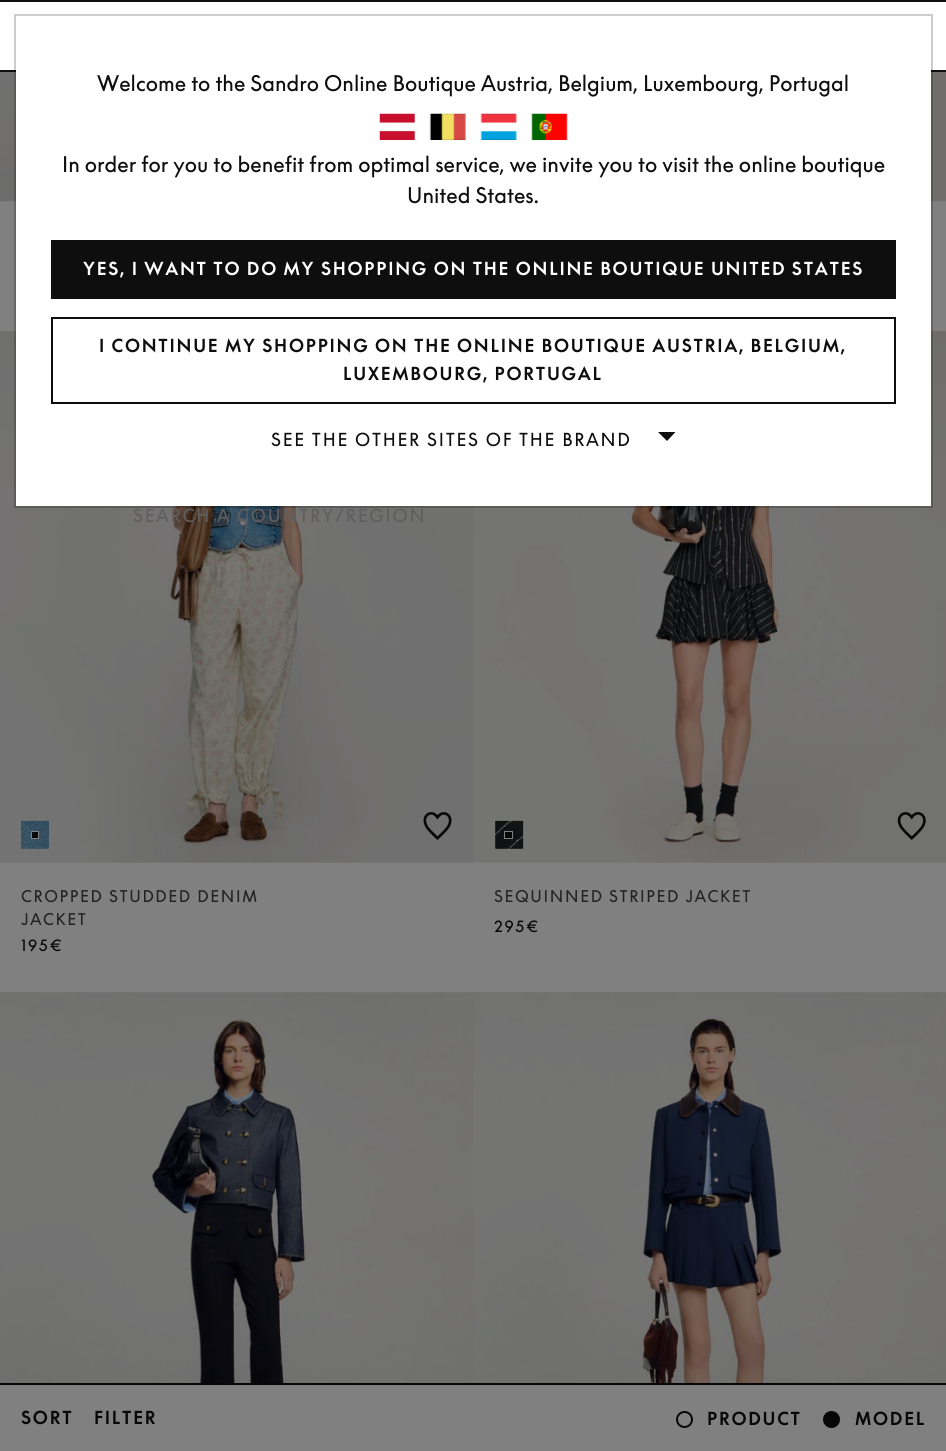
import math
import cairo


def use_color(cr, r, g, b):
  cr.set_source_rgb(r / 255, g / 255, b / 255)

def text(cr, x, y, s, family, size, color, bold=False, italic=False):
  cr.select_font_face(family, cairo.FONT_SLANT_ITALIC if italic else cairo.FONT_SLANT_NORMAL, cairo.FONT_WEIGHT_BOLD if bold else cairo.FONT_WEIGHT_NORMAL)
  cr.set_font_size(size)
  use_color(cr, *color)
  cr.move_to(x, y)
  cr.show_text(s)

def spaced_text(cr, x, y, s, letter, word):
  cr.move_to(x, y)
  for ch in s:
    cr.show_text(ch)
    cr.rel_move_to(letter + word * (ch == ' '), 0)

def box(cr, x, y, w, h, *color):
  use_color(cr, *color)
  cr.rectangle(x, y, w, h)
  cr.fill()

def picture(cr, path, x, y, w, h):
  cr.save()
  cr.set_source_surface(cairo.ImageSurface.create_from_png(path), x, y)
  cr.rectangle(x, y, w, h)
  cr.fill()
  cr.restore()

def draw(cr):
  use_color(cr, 128, 128, 128)
  cr.paint()
  box(cr, 0, 2, 946, 68, 255, 255, 255)
  box(cr, 0, 0, 946, 2, 14, 14, 14)
  box(cr, 0, 70, 946, 2, 14, 14, 14)
  picture(cr, "img_07.png", 0, 331, 474, 532)
  picture(cr, "img_11.png", 474, 331, 472, 532)
  box(cr, 16, 70, 915, 436, 255, 255, 255)
  picture(cr, "img_05.png", 0, 72, 16, 130)
  picture(cr, "img_06.png", 931, 72, 15, 130)
  cr.rectangle(15, 15, 917, 492)
  cr.set_source_rgba(0, 0, 0, 0.2)
  cr.stroke()
  picture(cr, "img_01.png", 379, 113, 36, 27)
  picture(cr, "img_02.png", 429, 113, 37, 27)
  picture(cr, "img_03.png", 480, 113, 37, 27)
  picture(cr, "img_04.png", 531, 113, 37, 27)
  box(cr, 51, 240, 845, 59, 14, 14, 14)
  cr.rectangle(52, 318, 843, 85)
  cr.stroke()
  cr.new_path()
  cr.move_to(658, 432)
  cr.line_to(675.5, 432)
  cr.line_to(667, 441)
  cr.close_path()
  cr.fill()
  picture(cr, "img_08.png", 21, 820, 28, 29)
  picture(cr, "img_09.png", 21, 820, 28, 29)
  use_color(cr, 7, 7, 7)
  cr.rectangle(31.5, 831.5, 7, 7)
  cr.fill_preserve()
  use_color(cr, 128, 128, 128)
  cr.set_line_width(1)
  cr.stroke()
  picture(cr, "img_10.png", 423, 812, 29, 28)
  picture(cr, "img_12.png", 495, 820, 29, 29)
  picture(cr, "img_13.png", 495, 820, 29, 29)
  use_color(cr, 7, 7, 7)
  cr.rectangle(504.5, 831.5, 8, 7)
  cr.fill_preserve()
  use_color(cr, 128, 128, 128)
  cr.stroke()
  picture(cr, "img_14.png", 897, 812, 29, 28)
  picture(cr, "img_15.png", 0, 992, 475, 391)
  picture(cr, "img_16.png", 474, 992, 472, 391)
  box(cr, 0, 1383, 946, 2, 7, 7, 7)
  cr.arc(684.5, 1419.5, 7.5, 0, 2 * math.pi)
  cr.set_line_width(2)
  cr.stroke()
  cr.arc(831.5, 1419.5, 7.5, 0, 2 * math.pi)
  cr.fill_preserve()
  cr.stroke()
  text(cr, 97, 91, "Welcome to the Sandro Online Boutique Austria, Belgium, Luxembourg, Portugal", "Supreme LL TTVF", 21, (14, 14, 14))
  text(cr, 62, 172, "In order for you to benefit from optimal service, we invite you to visit the online boutique", "Supreme LL TTVF", 21, (14, 14, 14))
  text(cr, 407, 203, "United States.", "Supreme LL TTVF", 21, (14, 14, 14))
  cr.select_font_face("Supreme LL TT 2", cairo.FONT_SLANT_NORMAL, cairo.FONT_WEIGHT_BOLD)
  cr.set_font_size(17.5)
  use_color(cr, 255, 255, 255)
  spaced_text(cr, 83, 275, "YES, I WANT TO DO MY SHOPPING ON THE ONLINE BOUTIQUE UNITED STATES", 1.75, 0)
  use_color(cr, 14, 14, 14)
  spaced_text(cr, 99, 352, "I CONTINUE MY SHOPPING ON THE ONLINE BOUTIQUE AUSTRIA, BELGIUM,", 1.75, 0)
  spaced_text(cr, 343, 380, "LUXEMBOURG, PORTUGAL", 1.75, 0)
  cr.select_font_face("Supreme LL TTVF")
  spaced_text(cr, 271, 446, "SEE THE OTHER SITES OF THE BRAND", 1.75, 0)
  use_color(cr, 95, 94, 94)
  spaced_text(cr, 133, 522, "SEARCH A COUNTRY/REGION", 1.75, 0)
  cr.set_font_size(15.75)
  use_color(cr, 34, 34, 34)
  spaced_text(cr, 21, 902, "CROPPED STUDDED DENIM", 1.6, 0)
  spaced_text(cr, 21, 925, "JACKET", 1.6, 0)
  use_color(cr, 7, 7, 7)
  spaced_text(cr, 21, 951, "195€", 1.6, 0)
  use_color(cr, 34, 34, 34)
  spaced_text(cr, 494, 902, "SEQUINNED STRIPED JACKET", 1.6, 0)
  use_color(cr, 7, 7, 7)
  spaced_text(cr, 494, 932, "295€", 1.6, 0)
  cr.select_font_face("Supreme LL TT 2", cairo.FONT_SLANT_NORMAL, cairo.FONT_WEIGHT_BOLD)
  cr.set_font_size(17.5)
  spaced_text(cr, 21, 1424, "SORT", 1.75, 0)
  spaced_text(cr, 94, 1424, "FILTER", 1.75, 0)
  cr.select_font_face("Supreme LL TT", cairo.FONT_SLANT_NORMAL, cairo.FONT_WEIGHT_BOLD)
  spaced_text(cr, 707, 1425, "PRODUCT", 1.75, 0)
  spaced_text(cr, 855, 1425, "MODEL", 1.75, 0)


surface = cairo.ImageSurface(cairo.FORMAT_RGB24, 946, 1451)
cr = cairo.Context(surface)
options = cairo.FontOptions()
options.set_hint_metrics(cairo.HINT_METRICS_OFF)
options.set_hint_style(cairo.HINT_STYLE_NONE)
cr.set_font_options(options)
cr.set_miter_limit(4)
draw(cr)
surface.write_to_png("out.png")
